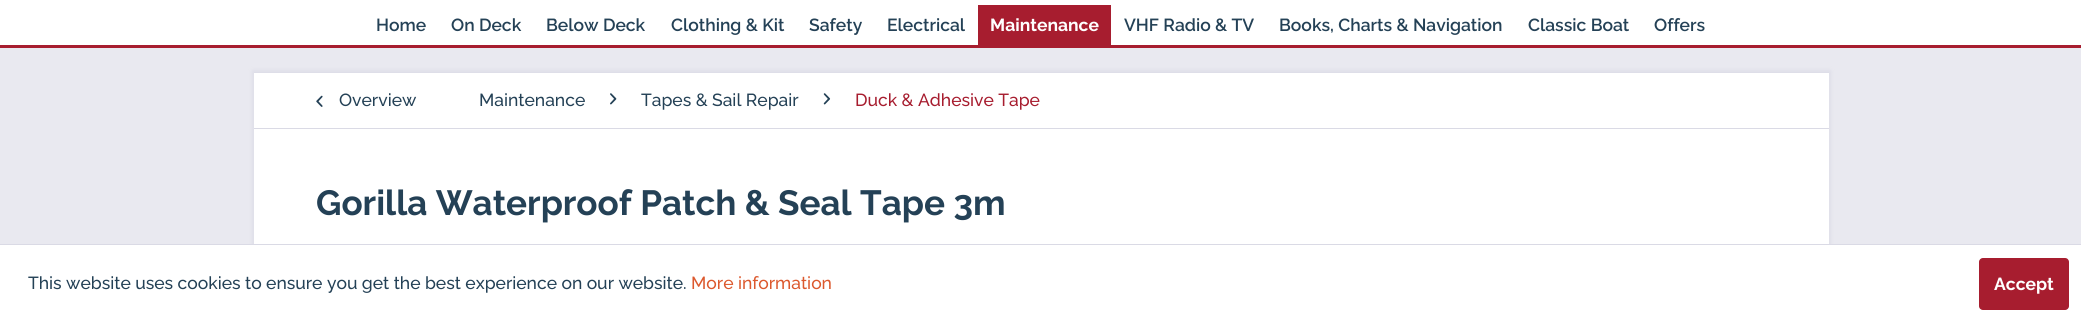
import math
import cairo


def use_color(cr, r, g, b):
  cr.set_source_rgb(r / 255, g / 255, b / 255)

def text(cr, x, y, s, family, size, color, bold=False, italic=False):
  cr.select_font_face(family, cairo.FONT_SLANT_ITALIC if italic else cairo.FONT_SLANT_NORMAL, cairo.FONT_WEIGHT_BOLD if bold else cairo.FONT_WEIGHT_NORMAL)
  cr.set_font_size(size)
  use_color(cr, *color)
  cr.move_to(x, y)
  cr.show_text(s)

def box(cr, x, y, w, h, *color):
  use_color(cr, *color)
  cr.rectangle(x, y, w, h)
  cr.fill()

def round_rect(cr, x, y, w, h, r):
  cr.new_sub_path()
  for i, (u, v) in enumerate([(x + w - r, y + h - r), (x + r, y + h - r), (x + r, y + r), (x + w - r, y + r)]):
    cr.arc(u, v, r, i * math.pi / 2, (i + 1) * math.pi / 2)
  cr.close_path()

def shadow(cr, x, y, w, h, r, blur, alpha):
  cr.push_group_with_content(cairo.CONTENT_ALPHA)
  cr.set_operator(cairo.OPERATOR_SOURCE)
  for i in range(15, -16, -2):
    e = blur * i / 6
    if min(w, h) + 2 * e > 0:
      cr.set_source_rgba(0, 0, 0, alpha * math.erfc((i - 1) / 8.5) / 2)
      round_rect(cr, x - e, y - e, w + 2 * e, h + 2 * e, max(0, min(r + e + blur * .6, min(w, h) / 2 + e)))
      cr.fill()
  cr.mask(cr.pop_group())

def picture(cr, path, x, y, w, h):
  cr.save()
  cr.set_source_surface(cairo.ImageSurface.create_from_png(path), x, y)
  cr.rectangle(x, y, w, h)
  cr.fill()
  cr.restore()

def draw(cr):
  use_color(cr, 233, 233, 240)
  cr.paint()
  box(cr, 0, 0, 2081, 45, 255, 255, 255)
  box(cr, 0, 45, 2081, 3, 167, 29, 47)
  box(cr, 978, 5, 133, 40, 167, 29, 47)
  use_color(cr, 218, 218, 229)
  shadow(cr, 253, 71, 1577, 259, 0, 2.5, 1)
  box(cr, 254, 73, 1575, 171, 255, 255, 255)
  box(cr, 254, 128, 1575, 1, 218, 218, 229)
  picture(cr, "img_01.png", 316, 95, 7, 12)
  picture(cr, "img_02.png", 610, 93, 7, 12)
  picture(cr, "img_03.png", 823, 93, 8, 12)
  box(cr, 0, 245, 2081, 77, 255, 255, 255)
  box(cr, 0, 244, 2081, 1, 218, 218, 229)
  use_color(cr, 167, 29, 47)
  round_rect(cr, 1979, 258, 90, 52, 4)
  cr.fill()
  text(cr, 376, 31, "Home", "Raleway SemiBold", 17.5, (36, 65, 86))
  text(cr, 451, 31, "On Deck", "Raleway SemiBold", 17.5, (36, 65, 86))
  text(cr, 546, 31, "Below Deck", "Raleway SemiBold", 17.5, (36, 65, 86))
  text(cr, 671, 31, "Clothing & Kit", "Raleway SemiBold", 17.5, (36, 65, 86))
  text(cr, 809, 31, "Safety", "Raleway SemiBold", 17.5, (36, 65, 86))
  text(cr, 887, 31, "Electrical", "Raleway SemiBold", 17.5, (36, 65, 86))
  text(cr, 990, 31, "Maintenance", "Raleway", 17.5, (255, 255, 255), bold=True)
  text(cr, 1124, 31, "VHF Radio & TV", "Raleway SemiBold", 17.5, (36, 65, 86))
  text(cr, 1279, 31, "Books, Charts & Navigation", "Raleway SemiBold", 17.5, (36, 65, 86))
  text(cr, 1528, 31, "Classic Boat", "Raleway SemiBold", 17.5, (36, 65, 86))
  text(cr, 1654, 31, "Offers", "Raleway SemiBold", 17.5, (36, 65, 86))
  text(cr, 339, 106, "Overview", "Raleway Medium", 17.5, (36, 65, 86))
  text(cr, 479, 106, "Maintenance", "Raleway Medium", 17.5, (36, 65, 86))
  text(cr, 641, 106, "Tapes & Sail Repair", "Raleway Medium", 17.5, (36, 65, 86))
  text(cr, 855, 106, "Duck & Adhesive Tape", "Raleway Medium", 17.5, (167, 29, 47))
  text(cr, 316, 215, "Gorilla Waterproof Patch & Seal Tape 3m", "Raleway", 35, (36, 65, 86), bold=True)
  text(cr, 28, 289, "This website uses cookies to ensure you get the best experience on our website.", "Raleway Medium", 17.5, (36, 65, 86))
  text(cr, 691, 289, "More information", "Raleway Medium", 17.5, (220, 89, 46))
  text(cr, 1994, 290, "Accept", "Raleway", 17.5, (255, 255, 255), bold=True)


surface = cairo.ImageSurface(cairo.FORMAT_RGB24, 2081, 322)
cr = cairo.Context(surface)
options = cairo.FontOptions()
options.set_hint_metrics(cairo.HINT_METRICS_OFF)
options.set_hint_style(cairo.HINT_STYLE_NONE)
cr.set_font_options(options)
cr.set_miter_limit(4)
draw(cr)
surface.write_to_png("out.png")
